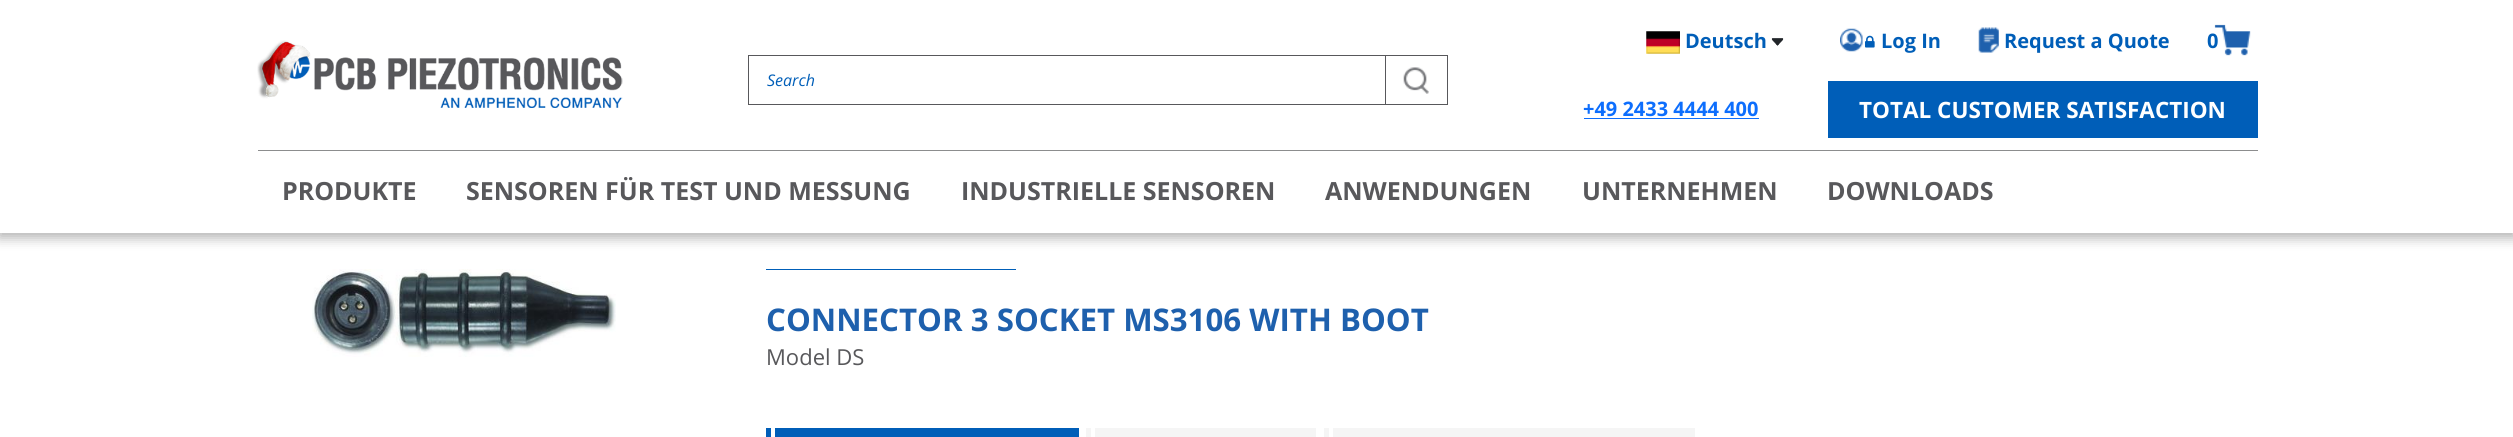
import math
import cairo


def use_color(cr, r, g, b):
  cr.set_source_rgb(r / 255, g / 255, b / 255)

def text(cr, x, y, s, family, size, color, bold=False, italic=False):
  cr.select_font_face(family, cairo.FONT_SLANT_ITALIC if italic else cairo.FONT_SLANT_NORMAL, cairo.FONT_WEIGHT_BOLD if bold else cairo.FONT_WEIGHT_NORMAL)
  cr.set_font_size(size)
  use_color(cr, *color)
  cr.move_to(x, y)
  cr.show_text(s)

def box(cr, x, y, w, h, *color):
  use_color(cr, *color)
  cr.rectangle(x, y, w, h)
  cr.fill()

def round_rect(cr, x, y, w, h, r):
  cr.new_sub_path()
  for i, (u, v) in enumerate([(x + w - r, y + h - r), (x + r, y + h - r), (x + r, y + r), (x + w - r, y + r)]):
    cr.arc(u, v, r, i * math.pi / 2, (i + 1) * math.pi / 2)
  cr.close_path()

def shadow(cr, x, y, w, h, r, blur, alpha):
  cr.push_group_with_content(cairo.CONTENT_ALPHA)
  cr.set_operator(cairo.OPERATOR_SOURCE)
  for i in range(15, -16, -2):
    e = blur * i / 6
    if min(w, h) + 2 * e > 0:
      cr.set_source_rgba(0, 0, 0, alpha * math.erfc((i - 1) / 8.5) / 2)
      round_rect(cr, x - e, y - e, w + 2 * e, h + 2 * e, max(0, min(r + e + blur * .6, min(w, h) / 2 + e)))
      cr.fill()
  cr.mask(cr.pop_group())

def picture(cr, path, x, y, w, h):
  cr.save()
  cr.set_source_surface(cairo.ImageSurface.create_from_png(path), x, y)
  cr.rectangle(x, y, w, h)
  cr.fill()
  cr.restore()

def draw(cr):
  use_color(cr, 255, 255, 255)
  cr.paint()
  cr.save()
  cr.set_fill_rule(cairo.FILL_RULE_EVEN_ODD)
  cr.new_path()
  cr.move_to(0, 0)
  cr.line_to(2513, 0)
  cr.line_to(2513, 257)
  cr.line_to(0, 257)
  cr.close_path()
  cr.move_to(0, 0)
  cr.line_to(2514, 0)
  cr.line_to(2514, 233)
  cr.line_to(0, 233)
  cr.close_path()
  cr.clip()
  use_color(cr, 0, 0, 0)
  shadow(cr, -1, 3, 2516, 235, 0, 6, 0.3)
  cr.restore()
  picture(cr, "img_01.png", 257, 40, 366, 68)
  cr.rectangle(748.5, 55.5, 699, 49)
  use_color(cr, 88, 88, 91)
  cr.set_line_width(1)
  cr.stroke()
  picture(cr, "img_02.png", 1403, 67, 26, 27)
  cr.rectangle(1385.5, 55.5, 62, 49)
  cr.stroke()
  picture(cr, "img_03.png", 1646, 31, 34, 23)
  picture(cr, "img_04.png", 1771, 38, 13, 8)
  picture(cr, "img_05.png", 1840, 28, 23, 24)
  picture(cr, "img_06.png", 1865, 35, 10, 13)
  picture(cr, "img_07.png", 1978, 27, 21, 26)
  picture(cr, "img_08.png", 2214, 24, 37, 32)
  box(cr, 258, 150, 2000, 1, 140, 141, 142)
  box(cr, 1584, 118, 175, 1, 13, 110, 253)
  box(cr, 1828, 81, 430, 57, 0, 94, 184)
  picture(cr, "img_09.png", 312, 269, 304, 88)
  box(cr, 766, 269, 250, 1, 0, 94, 184)
  box(cr, 766, 428, 313, 9, 0, 94, 184)
  box(cr, 771, 428, 4, 9, 255, 255, 255)
  box(cr, 1086, 428, 230, 9, 245, 245, 245)
  box(cr, 1091, 428, 4, 9, 255, 255, 255)
  box(cr, 1324, 428, 371, 9, 245, 245, 245)
  box(cr, 1329, 428, 4, 9, 255, 255, 255)
  text(cr, 767, 86, "Search", "Open Sans", 16, (0, 94, 184), italic=True)
  text(cr, 1685, 48, "Deutsch", "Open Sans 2", 20, (0, 94, 184), bold=True)
  text(cr, 1881, 48, "Log In", "Open Sans", 20, (0, 94, 184), bold=True)
  text(cr, 2004, 48, "Request a Quote", "Open Sans 2", 20, (0, 94, 184), bold=True)
  text(cr, 2207, 48, "0", "Open Sans 2", 20, (0, 94, 184), bold=True)
  text(cr, 282, 200, "PRODUKTE", "Open Sans 2", 25, (88, 88, 91), bold=True)
  text(cr, 466, 200, "SENSOREN FÜR TEST UND MESSUNG", "Open Sans 2", 25, (88, 88, 91), bold=True)
  text(cr, 961, 200, "INDUSTRIELLE SENSOREN", "Open Sans 2", 25, (88, 88, 91), bold=True)
  text(cr, 1325, 200, "ANWENDUNGEN", "Open Sans 2", 25, (88, 88, 91), bold=True)
  text(cr, 1582, 200, "UNTERNEHMEN", "Open Sans 2", 25, (88, 88, 91), bold=True)
  text(cr, 1827, 200, "DOWNLOADS", "Open Sans 2", 25, (88, 88, 91), bold=True)
  text(cr, 1583, 116, "+49 2433 4444 400", "Open Sans", 20, (13, 110, 253), bold=True)
  text(cr, 1859, 118, "TOTAL CUSTOMER SATISFACTION", "Open Sans 2", 22.5, (255, 255, 255), bold=True)
  text(cr, 766, 331, "CONNECTOR 3 SOCKET MS3106 WITH BOOT", "Open Sans", 31.25, (30, 96, 173), bold=True)
  text(cr, 766, 365, "Model DS", "Open Sans", 22, (88, 88, 91))


surface = cairo.ImageSurface(cairo.FORMAT_RGB24, 2513, 437)
cr = cairo.Context(surface)
options = cairo.FontOptions()
options.set_hint_metrics(cairo.HINT_METRICS_OFF)
options.set_hint_style(cairo.HINT_STYLE_NONE)
cr.set_font_options(options)
cr.set_miter_limit(4)
draw(cr)
surface.write_to_png("out.png")
